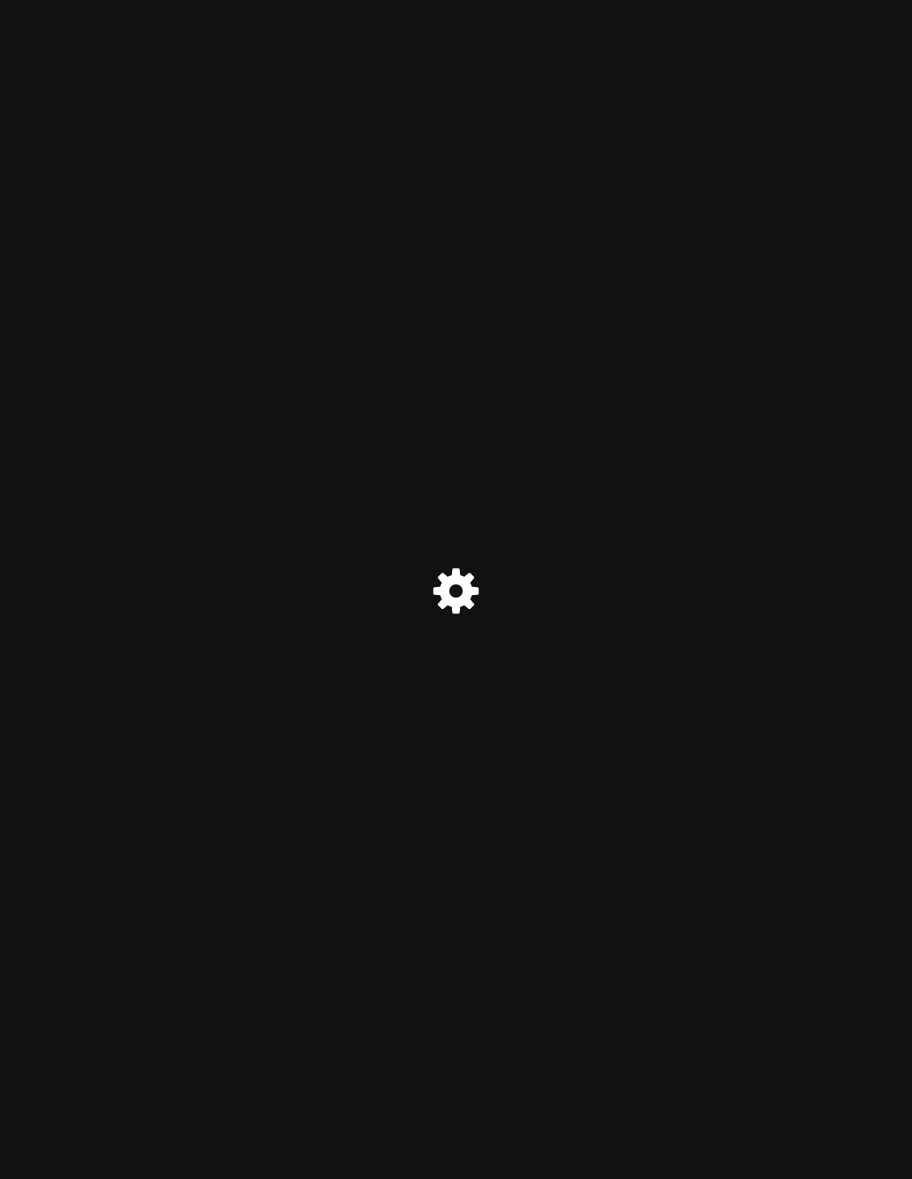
import math
import cairo


def use_color(cr, r, g, b):
  cr.set_source_rgb(r / 255, g / 255, b / 255)

def picture(cr, path, x, y, w, h):
  cr.save()
  cr.set_source_surface(cairo.ImageSurface.create_from_png(path), x, y)
  cr.rectangle(x, y, w, h)
  cr.fill()
  cr.restore()

def draw(cr):
  use_color(cr, 17, 17, 17)
  cr.paint()
  picture(cr, "img_01.png", 433, 568, 46, 46)


surface = cairo.ImageSurface(cairo.FORMAT_RGB24, 912, 1179)
cr = cairo.Context(surface)
options = cairo.FontOptions()
options.set_hint_metrics(cairo.HINT_METRICS_OFF)
options.set_hint_style(cairo.HINT_STYLE_NONE)
cr.set_font_options(options)
cr.set_miter_limit(4)
draw(cr)
surface.write_to_png("out.png")
